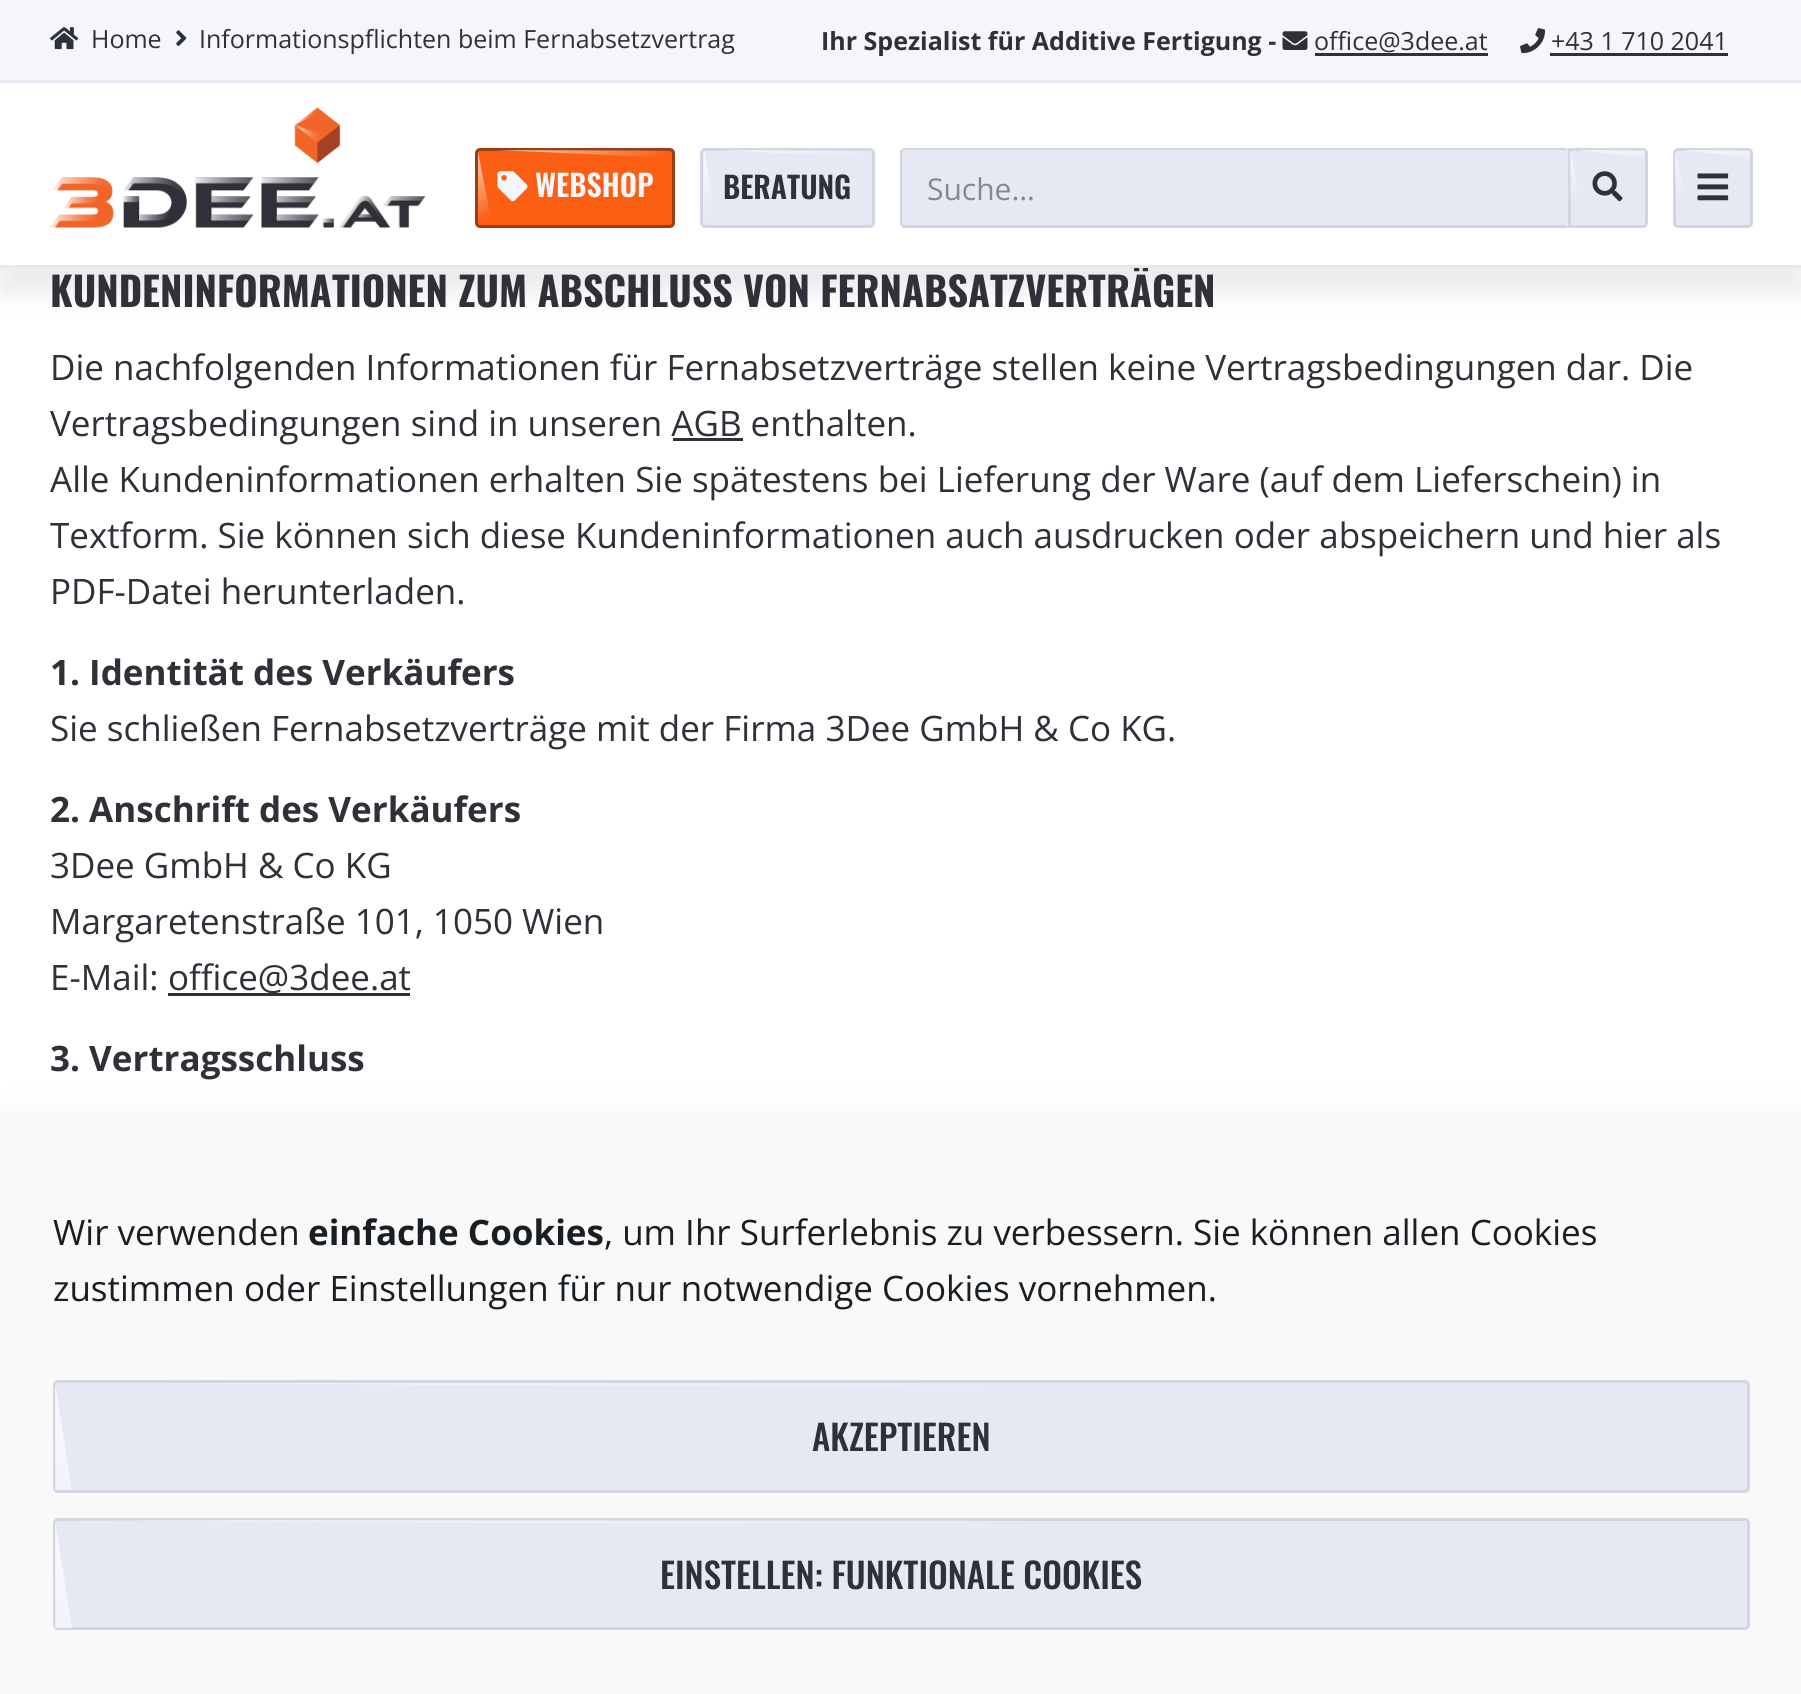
import math
import cairo


def use_color(cr, r, g, b):
  cr.set_source_rgb(r / 255, g / 255, b / 255)

def text(cr, x, y, s, family, size, color, bold=False, italic=False):
  cr.select_font_face(family, cairo.FONT_SLANT_ITALIC if italic else cairo.FONT_SLANT_NORMAL, cairo.FONT_WEIGHT_BOLD if bold else cairo.FONT_WEIGHT_NORMAL)
  cr.set_font_size(size)
  use_color(cr, *color)
  cr.move_to(x, y)
  cr.show_text(s)

def box(cr, x, y, w, h, *color):
  use_color(cr, *color)
  cr.rectangle(x, y, w, h)
  cr.fill()

def round_rect(cr, x, y, w, h, r):
  cr.new_sub_path()
  for i, (u, v) in enumerate([(x + w - r, y + h - r), (x + r, y + h - r), (x + r, y + r), (x + w - r, y + r)]):
    cr.arc(u, v, r, i * math.pi / 2, (i + 1) * math.pi / 2)
  cr.close_path()

def shadow(cr, x, y, w, h, r, blur, alpha):
  cr.push_group_with_content(cairo.CONTENT_ALPHA)
  cr.set_operator(cairo.OPERATOR_SOURCE)
  for i in range(15, -16, -2):
    e = blur * i / 6
    if min(w, h) + 2 * e > 0:
      cr.set_source_rgba(0, 0, 0, alpha * math.erfc((i - 1) / 8.5) / 2)
      round_rect(cr, x - e, y - e, w + 2 * e, h + 2 * e, max(0, min(r + e + blur * .6, min(w, h) / 2 + e)))
      cr.fill()
  cr.mask(cr.pop_group())

def picture(cr, path, x, y, w, h):
  cr.save()
  cr.set_source_surface(cairo.ImageSurface.create_from_png(path), x, y)
  cr.rectangle(x, y, w, h)
  cr.fill()
  cr.restore()

def draw(cr):
  use_color(cr, 255, 255, 255)
  cr.paint()
  box(cr, 0, 0, 1801, 80, 245, 246, 251)
  picture(cr, "img_01.png", 50, 27, 29, 23)
  picture(cr, "img_02.png", 176, 30, 11, 16)
  picture(cr, "img_03.png", 1282, 31, 26, 19)
  box(cr, 1315, 53, 173, 3, 47, 48, 56)
  picture(cr, "img_04.png", 1520, 28, 26, 26)
  box(cr, 1550, 53, 178, 3, 47, 48, 56)
  use_color(cr, 46, 48, 60)
  shadow(cr, 0, 105, 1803, 188, 0, 12.5, 0.1)
  box(cr, 0, 91, 1801, 174, 255, 255, 255)
  box(cr, 0, 80, 1801, 3, 230, 232, 242)
  picture(cr, "img_05.png", 50, 107, 375, 121)
  use_color(cr, 250, 95, 20)
  round_rect(cr, 476.5, 149.5, 197, 77, 3.5)
  cr.fill_preserve()
  use_color(cr, 160, 60, 20)
  cr.set_line_width(3)
  cr.stroke()
  picture(cr, "img_06.png", 497, 171, 31, 31)
  use_color(cr, 230, 232, 242)
  round_rect(cr, 701.5, 149.5, 172, 77, 3.5)
  cr.fill_preserve()
  use_color(cr, 210, 214, 226)
  cr.stroke()
  use_color(cr, 230, 232, 242)
  cr.new_path()
  cr.move_to(905, 148)
  cr.line_to(1568, 148)
  cr.line_to(1568, 228)
  cr.line_to(905, 228)
  cr.curve_to(902, 228, 900, 226, 900, 223)
  cr.line_to(900, 153)
  cr.curve_to(900, 150, 902, 148, 905, 148)
  cr.close_path()
  cr.fill()
  use_color(cr, 210, 214, 226)
  cr.new_path()
  cr.move_to(905, 148)
  cr.line_to(902, 149)
  cr.line_to(903, 151)
  cr.line_to(905, 150)
  cr.line_to(1565, 150)
  cr.line_to(1567, 148)
  cr.close_path()
  cr.fill()
  cr.new_path()
  cr.move_to(1568, 228)
  cr.line_to(903, 228)
  cr.line_to(901, 226)
  cr.line_to(903, 224)
  cr.line_to(905, 225)
  cr.line_to(1565, 225)
  cr.close_path()
  cr.fill()
  cr.new_path()
  cr.move_to(900, 152)
  cr.line_to(900, 222)
  cr.curve_to(900, 224, 900, 225, 901, 226)
  cr.line_to(903, 224)
  cr.line_to(902, 222)
  cr.line_to(902, 152)
  cr.line_to(903, 151)
  cr.line_to(902, 149)
  cr.curve_to(901, 150, 900, 151, 900, 152)
  cr.close_path()
  cr.fill()
  use_color(cr, 230, 232, 242)
  cr.new_path()
  cr.move_to(1569.5, 149.5)
  cr.line_to(1643, 149.5)
  cr.curve_to(1645, 149.5, 1646.5, 151, 1646.5, 153)
  cr.line_to(1646.5, 223)
  cr.curve_to(1646.5, 225, 1645, 226.5, 1643, 226.5)
  cr.line_to(1569.5, 226.5)
  cr.close_path()
  cr.fill_preserve()
  use_color(cr, 210, 214, 226)
  cr.stroke()
  picture(cr, "img_07.png", 1592, 171, 31, 31)
  gradient = cairo.LinearGradient(1591, 142, 1624, 233)
  gradient.add_color_stop_rgba(0, 1, 1, 1, 0.75)
  gradient.add_color_stop_rgba(0.5, 1, 1, 1, 0)
  cr.set_source(gradient)
  cr.set_fill_rule(cairo.FILL_RULE_EVEN_ODD)
  cr.new_path()
  cr.move_to(1570, 150)
  cr.line_to(1570, 224)
  cr.line_to(1585, 224)
  cr.close_path()
  cr.move_to(1577, 150)
  cr.line_to(1645, 158)
  cr.line_to(1645, 150)
  cr.close_path()
  cr.fill()
  use_color(cr, 230, 232, 242)
  round_rect(cr, 1674.5, 149.5, 77, 77, 3.5)
  cr.fill_preserve()
  use_color(cr, 210, 214, 226)
  cr.stroke()
  picture(cr, "img_08.png", 1697, 173, 32, 28)
  gradient = cairo.LinearGradient(1696, 142, 1729, 233)
  gradient.add_color_stop_rgba(0, 1, 1, 1, 0.75)
  gradient.add_color_stop_rgba(0.5, 1, 1, 1, 0)
  cr.set_source(gradient)
  cr.new_path()
  cr.move_to(1675, 150)
  cr.line_to(1675, 224)
  cr.line_to(1690, 224)
  cr.close_path()
  cr.move_to(1682, 150)
  cr.line_to(1750, 158)
  cr.line_to(1750, 150)
  cr.close_path()
  cr.fill()
  box(cr, 673, 438, 70, 3, 47, 48, 56)
  box(cr, 168, 993, 242, 3, 47, 48, 56)
  use_color(cr, 0, 0, 0)
  shadow(cr, 0, 1140, 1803, 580, 0, 25, 0.19)
  box(cr, 0, 1117, 1801, 577, 249, 249, 249)
  use_color(cr, 230, 232, 242)
  round_rect(cr, 54.5, 1381.5, 1694, 110, 3.5)
  cr.fill_preserve()
  use_color(cr, 210, 214, 226)
  cr.stroke()
  use_color(cr, 230, 232, 242)
  round_rect(cr, 54.5, 1519.5, 1694, 109, 3.5)
  cr.fill_preserve()
  use_color(cr, 210, 214, 226)
  cr.stroke()
  text(cr, 91, 48, "Home", "Open Sans", 25, (47, 48, 56))
  text(cr, 199, 48, "Informationspflichten beim Fernabsetzvertrag", "Open Sans", 25, (47, 48, 56))
  text(cr, 821, 50, "Ihr Spezialist für Additive Fertigung -", "Open Sans", 25, (47, 48, 56), bold=True)
  text(cr, 1314, 50, "office@3dee.at", "Open Sans", 25, (47, 48, 56))
  text(cr, 1551, 50, "+43 1 710 2041", "Open Sans", 25, (47, 48, 56))
  text(cr, 535, 197, "WEBSHOP", "Oswald SemiBold", 30, (245, 246, 251))
  gradient = cairo.LinearGradient(552, 123, 598, 252)
  gradient.add_color_stop_rgba(0, 1, 1, 1, 0.75)
  gradient.add_color_stop_rgba(0.5, 1, 1, 1, 0)
  cr.set_source(gradient)
  cr.new_path()
  cr.move_to(673, 158)
  cr.line_to(673, 150)
  cr.line_to(496, 150)
  cr.close_path()
  cr.move_to(478, 152)
  cr.line_to(492, 224)
  cr.line_to(478, 224)
  cr.close_path()
  cr.fill()
  text(cr, 723, 199, "BERATUNG", "Oswald SemiBold", 30, (47, 48, 56))
  gradient = cairo.LinearGradient(766, 127, 809, 248)
  gradient.add_color_stop_rgba(0, 1, 1, 1, 0.75)
  gradient.add_color_stop_rgba(0.5, 1, 1, 1, 0)
  cr.set_source(gradient)
  cr.new_path()
  cr.move_to(872, 150)
  cr.line_to(720, 150)
  cr.line_to(872, 158)
  cr.close_path()
  cr.move_to(704, 150)
  cr.line_to(718, 224)
  cr.line_to(703, 224)
  cr.close_path()
  cr.fill()
  text(cr, 927, 200, "Suche…", "Open Sans", 30, (130, 136, 152))
  text(cr, 50, 307, "KUNDENINFORMATIONEN ZUM ABSCHLUSS VON FERNABSATZVERTRÄGEN", "Oswald", 40, (47, 48, 56), bold=True)
  box(cr, 0, 265, 1801, 3, 230, 232, 242)
  text(cr, 50, 380, "Die nachfolgenden Informationen für Fernabsetzverträge stellen keine Vertragsbedingungen dar. Die", "Open Sans", 35, (47, 48, 56))
  text(cr, 50, 436, "Vertragsbedingungen sind in unseren AGB enthalten.", "Open Sans", 35, (47, 48, 56))
  text(cr, 50, 492, "Alle Kundeninformationen erhalten Sie spätestens bei Lieferung der Ware (auf dem Lieferschein) in", "Open Sans", 35, (47, 48, 56))
  text(cr, 50, 548, "Textform. Sie können sich diese Kundeninformationen auch ausdrucken oder abspeichern und hier als", "Open Sans", 35, (47, 48, 56))
  text(cr, 50, 604, "PDF-Datei herunterladen.", "Open Sans", 35, (47, 48, 56))
  text(cr, 50, 685, "1. Identität des Verkäufers", "Open Sans", 35, (47, 48, 56), bold=True)
  text(cr, 50, 741, "Sie schließen Fernabsetzverträge mit der Firma 3Dee GmbH & Co KG.", "Open Sans", 35, (47, 48, 56))
  text(cr, 50, 822, "2. Anschrift des Verkäufers", "Open Sans", 35, (47, 48, 56), bold=True)
  text(cr, 50, 878, "3Dee GmbH & Co KG", "Open Sans", 35, (47, 48, 56))
  text(cr, 50, 934, "Margaretenstraße 101, 1050 Wien", "Open Sans", 35, (47, 48, 56))
  text(cr, 50, 990, "E-Mail:", "Open Sans", 35, (47, 48, 56))
  text(cr, 168, 990, "office@3dee.at", "Open Sans", 35, (47, 48, 56))
  text(cr, 50, 1071, "3. Vertragsschluss", "Open Sans", 35, (47, 48, 56), bold=True)
  text(cr, 53, 1245, "Wir verwenden", "Open Sans", 35, (25, 30, 35))
  text(cr, 308, 1245, "einfache Cookies", "Open Sans", 35, (25, 30, 35), bold=True)
  text(cr, 604, 1245, ", um Ihr Surferlebnis zu verbessern. Sie können allen Cookies", "Open Sans", 35, (25, 30, 35))
  text(cr, 53, 1301, "zustimmen oder Einstellungen für nur notwendige Cookies vornehmen.", "Open Sans", 35, (25, 30, 35))
  text(cr, 812, 1451, "AKZEPTIEREN", "Oswald Medium", 35, (47, 48, 56))
  gradient = cairo.LinearGradient(785, 1117, 1018, 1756)
  gradient.add_color_stop_rgba(0, 1, 1, 1, 0.75)
  gradient.add_color_stop_rgba(0.5, 1, 1, 1, 0)
  cr.set_source(gradient)
  cr.new_path()
  cr.move_to(55, 1383)
  cr.line_to(55, 1490)
  cr.line_to(72, 1490)
  cr.close_path()
  cr.move_to(136, 1383)
  cr.line_to(1748, 1393)
  cr.line_to(1748, 1383)
  cr.close_path()
  cr.fill()
  text(cr, 660, 1589, "EINSTELLEN: FUNKTIONALE COOKIES", "Oswald Medium", 35, (47, 48, 56))
  gradient = cairo.LinearGradient(785, 1254, 1018, 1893)
  gradient.add_color_stop_rgba(0, 1, 1, 1, 0.75)
  gradient.add_color_stop_rgba(0.5, 1, 1, 1, 0)
  cr.set_source(gradient)
  cr.set_fill_rule(cairo.FILL_RULE_WINDING)
  cr.new_path()
  cr.move_to(55, 1520)
  cr.line_to(55, 1628)
  cr.line_to(72, 1628)
  cr.line_to(55, 1520)
  cr.line_to(1748, 1530)
  cr.line_to(1748, 1520)
  cr.close_path()
  cr.fill()


surface = cairo.ImageSurface(cairo.FORMAT_RGB24, 1801, 1694)
cr = cairo.Context(surface)
options = cairo.FontOptions()
options.set_hint_metrics(cairo.HINT_METRICS_OFF)
options.set_hint_style(cairo.HINT_STYLE_NONE)
cr.set_font_options(options)
cr.set_miter_limit(4)
draw(cr)
surface.write_to_png("out.png")
